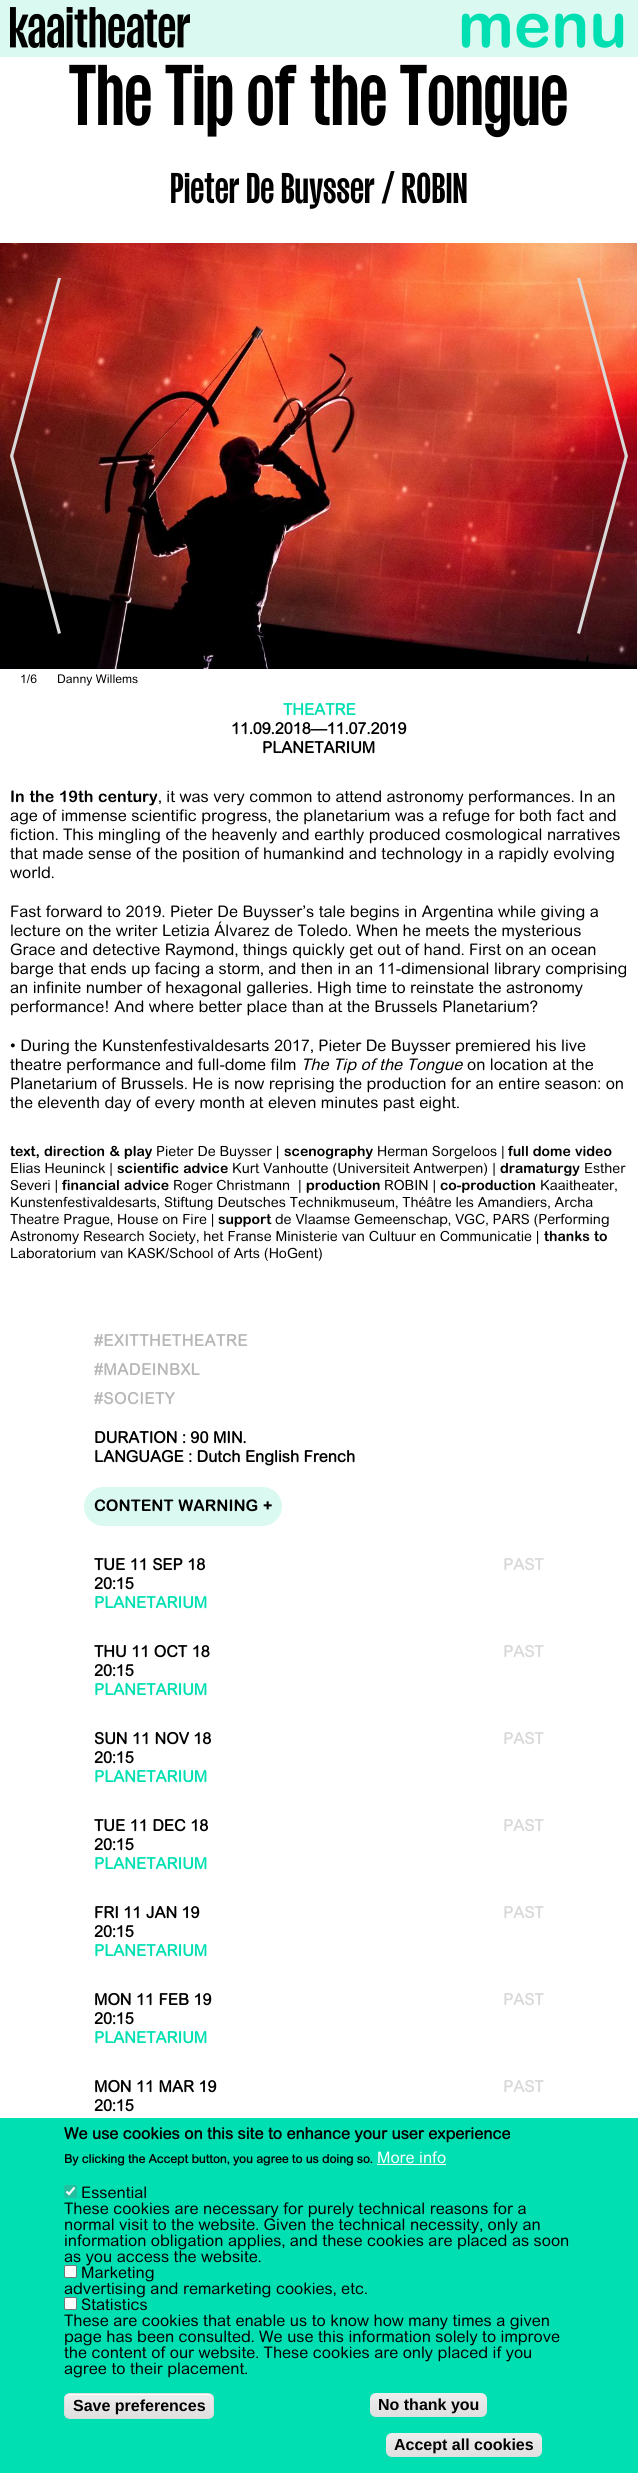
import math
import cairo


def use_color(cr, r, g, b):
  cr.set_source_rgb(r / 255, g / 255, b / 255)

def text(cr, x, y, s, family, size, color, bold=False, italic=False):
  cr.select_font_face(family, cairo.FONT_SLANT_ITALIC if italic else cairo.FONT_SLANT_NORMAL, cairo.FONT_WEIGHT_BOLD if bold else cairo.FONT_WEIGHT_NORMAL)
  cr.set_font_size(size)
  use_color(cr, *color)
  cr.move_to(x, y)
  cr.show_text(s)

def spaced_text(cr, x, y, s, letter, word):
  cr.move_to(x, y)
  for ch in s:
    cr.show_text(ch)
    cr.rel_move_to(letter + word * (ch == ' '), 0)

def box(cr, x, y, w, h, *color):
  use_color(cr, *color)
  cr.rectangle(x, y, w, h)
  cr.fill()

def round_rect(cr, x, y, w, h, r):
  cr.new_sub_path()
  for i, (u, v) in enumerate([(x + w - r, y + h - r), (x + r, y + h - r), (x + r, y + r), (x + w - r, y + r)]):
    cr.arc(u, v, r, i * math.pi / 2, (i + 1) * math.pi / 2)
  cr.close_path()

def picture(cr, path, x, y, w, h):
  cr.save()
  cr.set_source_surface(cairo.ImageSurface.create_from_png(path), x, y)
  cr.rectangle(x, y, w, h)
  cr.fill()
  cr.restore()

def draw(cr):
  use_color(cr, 255, 255, 255)
  cr.paint()
  box(cr, 0, 0, 638, 57, 218, 249, 240)
  picture(cr, "img_01.png", 10, 7, 180, 41)
  picture(cr, "img_02.png", 0, 243, 637, 426)
  use_color(cr, 217, 217, 217)
  cr.new_path()
  cr.move_to(10, 456)
  cr.line_to(13, 455)
  cr.line_to(61, 633)
  cr.line_to(58, 634)
  cr.close_path()
  cr.fill()
  cr.new_path()
  cr.move_to(58, 278)
  cr.line_to(61, 278)
  cr.line_to(13, 457)
  cr.line_to(10, 456)
  cr.close_path()
  cr.fill()
  cr.new_path()
  cr.move_to(625, 455)
  cr.line_to(628, 456)
  cr.line_to(580, 634)
  cr.line_to(577, 633)
  cr.close_path()
  cr.fill()
  cr.new_path()
  cr.move_to(577, 278)
  cr.line_to(580, 278)
  cr.line_to(628, 456)
  cr.line_to(625, 457)
  cr.close_path()
  cr.fill()
  use_color(cr, 218, 249, 240)
  round_rect(cr, 84, 1487, 198, 39, 19.5)
  cr.fill()
  box(cr, 0, 2118, 638, 355, 0, 223, 177)
  box(cr, 377, 2164, 69, 1, 255, 255, 255)
  use_color(cr, 35, 192, 159)
  round_rect(cr, 64, 2185, 13, 13, 2)
  cr.fill()
  cr.new_path()
  cr.move_to(66.5, 2191.5)
  cr.line_to(69, 2194)
  cr.line_to(74.5, 2187.5)
  use_color(cr, 255, 255, 255)
  cr.set_line_width(2.1)
  cr.stroke()
  cr.save()
  round_rect(cr, 64, 2393, 150, 26, 6)
  cr.clip()
  gradient = cairo.LinearGradient(139, 2394, 139, 2418)
  gradient.add_color_stop_rgba(0.05, 0.929, 0.929, 0.929, 1)
  gradient.add_color_stop_rgba(1, 0.875, 0.875, 0.875, 1)
  cr.set_source(gradient)
  cr.rectangle(64, 2394, 150, 24)
  cr.fill()
  cr.restore()
  cr.new_path()
  cr.move_to(70, 2395)
  cr.line_to(208, 2395)
  cr.curve_to(211, 2395, 213, 2397, 213, 2400)
  cr.line_to(213, 2399)
  cr.curve_to(213, 2396, 211, 2394, 208, 2394)
  cr.line_to(70, 2394)
  cr.curve_to(67, 2394, 65, 2396, 65, 2399)
  cr.line_to(65, 2400)
  cr.curve_to(65, 2397, 67, 2395, 70, 2395)
  cr.close_path()
  cr.fill()
  round_rect(cr, 64.5, 2393.5, 149, 25, 5.5)
  use_color(cr, 220, 220, 220)
  cr.set_line_width(1)
  cr.stroke()
  gradient = cairo.LinearGradient(429, 2393, 429, 2417)
  gradient.add_color_stop_rgba(0.05, 0.929, 0.929, 0.929, 1)
  gradient.add_color_stop_rgba(1, 0.875, 0.875, 0.875, 1)
  cr.set_source(gradient)
  round_rect(cr, 370, 2393, 117, 24, 6)
  cr.fill()
  gradient = cairo.LinearGradient(464, 2433, 464, 2457)
  gradient.add_color_stop_rgba(0.05, 0.929, 0.929, 0.929, 1)
  gradient.add_color_stop_rgba(1, 0.875, 0.875, 0.875, 1)
  cr.set_source(gradient)
  round_rect(cr, 386, 2433, 156, 24, 6)
  cr.fill()
  text(cr, 458, 47, "menu", "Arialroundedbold", 63, (0, 223, 177), bold=True)
  text(cr, 69, 125, "The Tip of the Tongue", "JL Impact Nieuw", 80, (0, 0, 0))
  text(cr, 170, 203, "Pieter De Buysser / ROBIN", "JL Impact Nieuw", 40, (0, 0, 0))
  text(cr, 20, 683, "1/6", "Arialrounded", 12, (0, 0, 0))
  text(cr, 57, 683, "Danny Willems", "Arialrounded", 12, (0, 0, 0))
  text(cr, 283, 715, "THEATRE", "Arialrounded", 16, (0, 223, 177), bold=True)
  text(cr, 231, 734, "11.09.2018—11.07.2019", "Arialrounded", 16, (0, 0, 0), bold=True)
  text(cr, 262, 753, "PLANETARIUM", "Arialrounded", 16, (0, 0, 0), bold=True)
  text(cr, 10, 802, "In the 19th century", "Arialroundedbold", 16, (0, 0, 0), bold=True)
  text(cr, 158, 802, ", it was very common to attend astronomy performances. In an", "Arialrounded", 16, (0, 0, 0))
  text(cr, 10, 821, "age of immense scientific progress, the planetarium was a refuge for both fact and", "Arialrounded", 16, (0, 0, 0))
  text(cr, 10, 840, "fiction. This mingling of the heavenly and earthly produced cosmological narratives", "Arialrounded", 16, (0, 0, 0))
  text(cr, 10, 859, "that made sense of the position of humankind and technology in a rapidly evolving", "Arialrounded", 16, (0, 0, 0))
  text(cr, 10, 878, "world.", "Arialrounded", 16, (0, 0, 0))
  text(cr, 10, 917, "Fast forward to 2019. Pieter De Buysser’s tale begins in Argentina while giving a", "Arialrounded", 16, (0, 0, 0))
  text(cr, 10, 936, "lecture on the writer Letizia Álvarez de Toledo. When he meets the mysterious", "Arialrounded", 16, (0, 0, 0))
  text(cr, 10, 955, "Grace and detective Raymond, things quickly get out of hand. First on an ocean", "Arialrounded", 16, (0, 0, 0))
  text(cr, 10, 974, "barge that ends up facing a storm, and then in an 11-dimensional library comprising", "Arialrounded", 16, (0, 0, 0))
  text(cr, 10, 993, "an infinite number of hexagonal galleries. High time to reinstate the astronomy", "Arialrounded", 16, (0, 0, 0))
  text(cr, 10, 1012, "performance! And where better place than at the Brussels Planetarium?", "Arialrounded", 16, (0, 0, 0))
  text(cr, 10, 1051, "• During the Kunstenfestivaldesarts 2017, Pieter De Buysser premiered his live", "Arialrounded", 16, (0, 0, 0))
  text(cr, 10, 1070, "theatre performance and full-dome film", "Arialrounded", 16, (0, 0, 0))
  text(cr, 301, 1070, "The Tip of the Tongue", "Arialrounded", 16, (0, 0, 0), italic=True)
  text(cr, 467, 1070, "on location at the", "Arialrounded", 16, (0, 0, 0))
  text(cr, 10, 1089, "Planetarium of Brussels. He is now reprising the production for an entire season: on", "Arialrounded", 16, (0, 0, 0))
  text(cr, 10, 1108, "the eleventh day of every month at eleven minutes past eight.", "Arialrounded", 16, (0, 0, 0))
  text(cr, 10, 1156, "text, direction & play", "Arialroundedbold", 14, (0, 0, 0), bold=True)
  text(cr, 156, 1156, "Pieter De Buysser |", "Arialrounded", 14, (0, 0, 0))
  text(cr, 284, 1156, "scenography", "Arialroundedbold", 14, (0, 0, 0), bold=True)
  text(cr, 377, 1156, "Herman Sorgeloos |", "Arialrounded", 14, (0, 0, 0))
  text(cr, 508, 1156, "full dome video", "Arialroundedbold", 14, (0, 0, 0), bold=True)
  text(cr, 10, 1173, "Elias Heuninck |", "Arialrounded", 14, (0, 0, 0))
  text(cr, 117, 1173, "scientific advice", "Arialroundedbold", 14, (0, 0, 0), bold=True)
  text(cr, 232, 1173, "Kurt Vanhoutte (Universiteit Antwerpen) |", "Arialrounded", 14, (0, 0, 0))
  text(cr, 500, 1173, "dramaturgy", "Arialroundedbold", 14, (0, 0, 0), bold=True)
  text(cr, 584, 1173, "Esther", "Arialrounded", 14, (0, 0, 0))
  text(cr, 10, 1190, "Severi |", "Arialrounded", 14, (0, 0, 0))
  text(cr, 62, 1190, "financial advice", "Arialroundedbold", 14, (0, 0, 0), bold=True)
  text(cr, 173, 1190, "Roger Christmann  |", "Arialrounded", 14, (0, 0, 0))
  text(cr, 306, 1190, "production", "Arialroundedbold", 14, (0, 0, 0), bold=True)
  text(cr, 384, 1190, "ROBIN |", "Arialrounded", 14, (0, 0, 0))
  text(cr, 440, 1190, "co-production", "Arialroundedbold", 14, (0, 0, 0), bold=True)
  text(cr, 540, 1190, "Kaaitheater,", "Arialrounded", 14, (0, 0, 0))
  text(cr, 10, 1207, "Kunstenfestivaldesarts, Stiftung Deutsches Technikmuseum, Théâtre les Amandiers, Archa", "Arialrounded", 14, (0, 0, 0))
  text(cr, 10, 1224, "Theatre Prague, House on Fire |", "Arialrounded", 14, (0, 0, 0))
  text(cr, 218, 1224, "support", "Arialroundedbold", 14, (0, 0, 0), bold=True)
  text(cr, 275, 1224, "de Vlaamse Gemeenschap, VGC, PARS (Performing", "Arialrounded", 14, (0, 0, 0))
  text(cr, 10, 1241, "Astronomy Research Society, het Franse Ministerie van Cultuur en Communicatie |", "Arialrounded", 14, (0, 0, 0))
  text(cr, 544, 1241, "thanks to", "Arialroundedbold", 14, (0, 0, 0), bold=True)
  text(cr, 10, 1258, "Laboratorium van KASK/School of Arts (HoGent)", "Arialrounded", 14, (0, 0, 0))
  cr.select_font_face("Arialrounded", cairo.FONT_SLANT_NORMAL, cairo.FONT_WEIGHT_BOLD)
  cr.set_font_size(16)
  use_color(cr, 183, 183, 183)
  spaced_text(cr, 94, 1346, "#EXITTHETHEATRE", 0.5, 0)
  spaced_text(cr, 94, 1375, "#MADEINBXL", 0.5, 0)
  spaced_text(cr, 94, 1404, "#SOCIETY", 0.5, 0)
  text(cr, 94, 1443, "DURATION : 90 MIN.", "Arialrounded", 16, (0, 0, 0), bold=True)
  text(cr, 94, 1462, "LANGUAGE : Dutch English French", "Arialrounded", 16, (0, 0, 0), bold=True)
  text(cr, 94, 1511, "CONTENT WARNING +", "Arialroundedbold", 16, (0, 0, 0), bold=True)
  text(cr, 94, 1570, "TUE 11 SEP 18", "Arialrounded", 16, (0, 0, 0), bold=True)
  text(cr, 94, 1589, "20:15", "Arialrounded", 16, (0, 0, 0), bold=True)
  text(cr, 94, 1608, "PLANETARIUM", "Arialrounded", 16, (0, 223, 177), bold=True)
  text(cr, 503, 1570, "PAST", "Arialrounded", 16, (217, 217, 217), bold=True)
  text(cr, 94, 1657, "THU 11 OCT 18", "Arialrounded", 16, (0, 0, 0), bold=True)
  text(cr, 94, 1676, "20:15", "Arialrounded", 16, (0, 0, 0), bold=True)
  text(cr, 94, 1695, "PLANETARIUM", "Arialrounded", 16, (0, 223, 177), bold=True)
  text(cr, 503, 1657, "PAST", "Arialrounded", 16, (217, 217, 217), bold=True)
  text(cr, 94, 1744, "SUN 11 NOV 18", "Arialrounded", 16, (0, 0, 0), bold=True)
  text(cr, 94, 1763, "20:15", "Arialrounded", 16, (0, 0, 0), bold=True)
  text(cr, 94, 1782, "PLANETARIUM", "Arialrounded", 16, (0, 223, 177), bold=True)
  text(cr, 503, 1744, "PAST", "Arialrounded", 16, (217, 217, 217), bold=True)
  text(cr, 94, 1831, "TUE 11 DEC 18", "Arialrounded", 16, (0, 0, 0), bold=True)
  text(cr, 94, 1850, "20:15", "Arialrounded", 16, (0, 0, 0), bold=True)
  text(cr, 94, 1869, "PLANETARIUM", "Arialrounded", 16, (0, 223, 177), bold=True)
  text(cr, 503, 1831, "PAST", "Arialrounded", 16, (217, 217, 217), bold=True)
  text(cr, 94, 1918, "FRI 11 JAN 19", "Arialrounded", 16, (0, 0, 0), bold=True)
  text(cr, 94, 1937, "20:15", "Arialrounded", 16, (0, 0, 0), bold=True)
  text(cr, 94, 1956, "PLANETARIUM", "Arialrounded", 16, (0, 223, 177), bold=True)
  text(cr, 503, 1918, "PAST", "Arialrounded", 16, (217, 217, 217), bold=True)
  text(cr, 94, 2005, "MON 11 FEB 19", "Arialrounded", 16, (0, 0, 0), bold=True)
  text(cr, 94, 2024, "20:15", "Arialrounded", 16, (0, 0, 0), bold=True)
  text(cr, 94, 2043, "PLANETARIUM", "Arialrounded", 16, (0, 223, 177), bold=True)
  text(cr, 503, 2005, "PAST", "Arialrounded", 16, (217, 217, 217), bold=True)
  text(cr, 94, 2092, "MON 11 MAR 19", "Arialrounded", 16, (0, 0, 0), bold=True)
  text(cr, 94, 2111, "20:15", "Arialrounded", 16, (0, 0, 0), bold=True)
  text(cr, 503, 2092, "PAST", "Arialrounded", 16, (217, 217, 217), bold=True)
  text(cr, 64, 2139, "We use cookies on this site to enhance your user experience", "Arialrounded", 16, (0, 0, 0), bold=True)
  text(cr, 64, 2163, "By clicking the Accept button, you agree to us doing so.", "Arialrounded", 12, (0, 0, 0), bold=True)
  text(cr, 377, 2163, "More info", "Arialrounded", 16, (255, 255, 255))
  text(cr, 81, 2198, "Essential", "Arialrounded", 16, (0, 0, 0))
  text(cr, 64, 2214, "These cookies are necessary for purely technical reasons for a", "Arialrounded", 16, (0, 0, 0))
  text(cr, 64, 2230, "normal visit to the website. Given the technical necessity, only an", "Arialrounded", 16, (0, 0, 0))
  text(cr, 64, 2246, "information obligation applies, and these cookies are placed as soon", "Arialrounded", 16, (0, 0, 0))
  text(cr, 64, 2262, "as you access the website.", "Arialrounded", 16, (0, 0, 0))
  use_color(cr, 255, 255, 255)
  round_rect(cr, 64.5, 2265.5, 12, 12, 1.5)
  cr.fill_preserve()
  use_color(cr, 118, 118, 118)
  cr.stroke()
  text(cr, 81, 2278, "Marketing", "Arialrounded", 16, (0, 0, 0))
  text(cr, 64, 2294, "advertising and remarketing cookies, etc.", "Arialrounded", 16, (0, 0, 0))
  use_color(cr, 255, 255, 255)
  round_rect(cr, 64.5, 2297.5, 12, 12, 1.5)
  cr.fill_preserve()
  use_color(cr, 118, 118, 118)
  cr.stroke()
  text(cr, 81, 2310, "Statistics", "Arialrounded", 16, (0, 0, 0))
  text(cr, 64, 2326, "These are cookies that enable us to know how many times a given", "Arialrounded", 16, (0, 0, 0))
  text(cr, 64, 2342, "page has been consulted. We use this information solely to improve", "Arialrounded", 16, (0, 0, 0))
  text(cr, 64, 2358, "the content of our website. These cookies are only placed if you", "Arialrounded", 16, (0, 0, 0))
  text(cr, 64, 2374, "agree to their placement.", "Arialrounded", 16, (0, 0, 0))
  text(cr, 73, 2411, "Save preferences", "Liberation Sans", 16, (0, 0, 0), bold=True)
  text(cr, 378, 2410, "No thank you", "Liberation Sans", 16, (0, 0, 0), bold=True)
  text(cr, 394, 2450, "Accept all cookies", "Liberation Sans", 16, (0, 0, 0), bold=True)


surface = cairo.ImageSurface(cairo.FORMAT_RGB24, 638, 2473)
cr = cairo.Context(surface)
options = cairo.FontOptions()
options.set_hint_metrics(cairo.HINT_METRICS_OFF)
options.set_hint_style(cairo.HINT_STYLE_NONE)
cr.set_font_options(options)
cr.set_miter_limit(4)
draw(cr)
surface.write_to_png("out.png")
